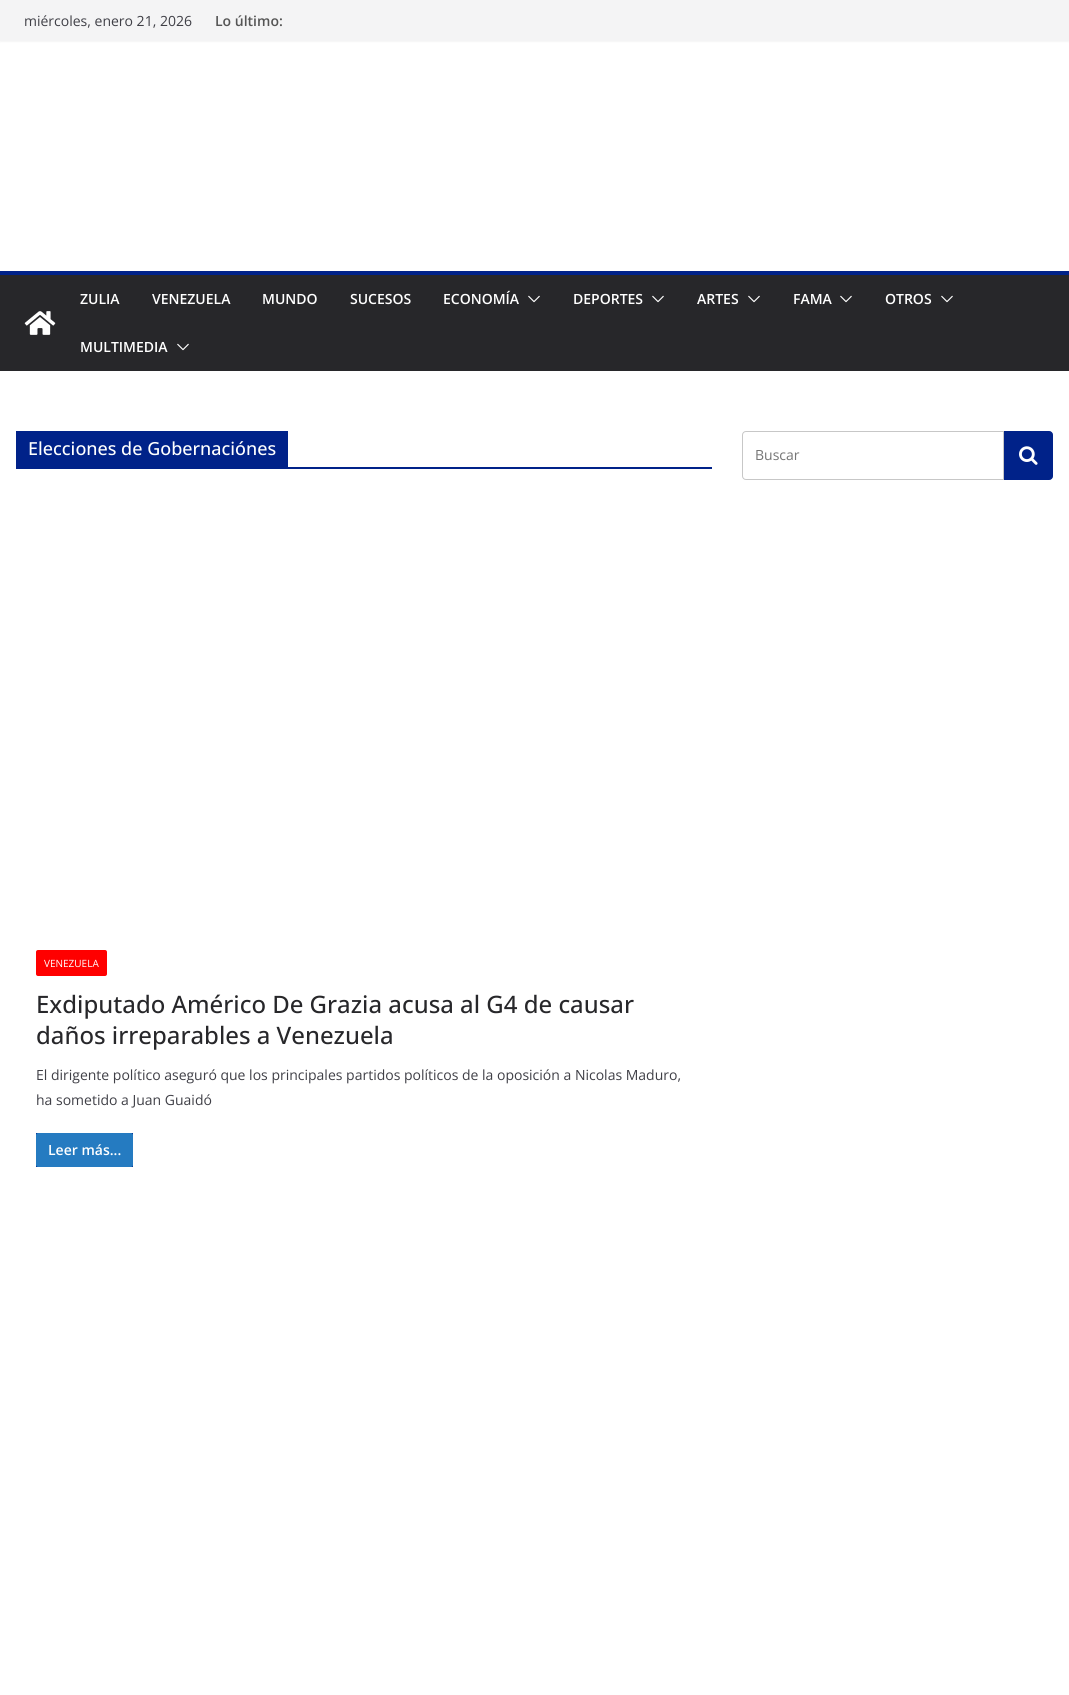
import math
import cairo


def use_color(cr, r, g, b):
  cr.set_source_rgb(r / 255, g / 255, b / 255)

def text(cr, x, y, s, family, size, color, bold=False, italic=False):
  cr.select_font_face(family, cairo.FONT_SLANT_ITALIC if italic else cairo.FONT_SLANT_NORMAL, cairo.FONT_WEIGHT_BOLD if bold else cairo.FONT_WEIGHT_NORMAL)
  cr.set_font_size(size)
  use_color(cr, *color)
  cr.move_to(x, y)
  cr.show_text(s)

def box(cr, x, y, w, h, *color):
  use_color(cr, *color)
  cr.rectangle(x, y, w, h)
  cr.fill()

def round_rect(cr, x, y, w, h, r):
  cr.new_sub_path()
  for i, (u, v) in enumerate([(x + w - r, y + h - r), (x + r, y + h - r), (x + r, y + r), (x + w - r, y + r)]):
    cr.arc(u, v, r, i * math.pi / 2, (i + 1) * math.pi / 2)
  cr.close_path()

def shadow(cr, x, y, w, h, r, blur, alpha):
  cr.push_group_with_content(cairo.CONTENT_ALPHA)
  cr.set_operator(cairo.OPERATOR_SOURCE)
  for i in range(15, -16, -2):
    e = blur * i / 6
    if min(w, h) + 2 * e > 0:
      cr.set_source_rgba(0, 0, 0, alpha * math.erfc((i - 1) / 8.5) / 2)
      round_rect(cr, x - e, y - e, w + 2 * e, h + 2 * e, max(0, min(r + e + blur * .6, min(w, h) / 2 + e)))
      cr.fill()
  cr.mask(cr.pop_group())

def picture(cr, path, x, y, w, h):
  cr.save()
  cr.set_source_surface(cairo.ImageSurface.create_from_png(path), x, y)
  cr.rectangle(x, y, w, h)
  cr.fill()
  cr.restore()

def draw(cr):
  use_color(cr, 255, 255, 255)
  cr.paint()
  use_color(cr, 0, 0, 0)
  shadow(cr, 0, 0, 1069, 41, 0, 1, 0.1)
  box(cr, 0, 0, 1069, 41, 244, 244, 245)
  box(cr, 0, 275, 1069, 96, 39, 39, 42)
  box(cr, 0, 271, 1069, 4, 0, 34, 137)
  picture(cr, "img_01.png", 24, 311, 32, 24)
  picture(cr, "img_02.png", 528, 295, 12, 8)
  picture(cr, "img_02.png", 652, 295, 12, 8)
  picture(cr, "img_02.png", 748, 295, 12, 8)
  picture(cr, "img_02.png", 840, 295, 12, 8)
  picture(cr, "img_02.png", 941, 295, 12, 8)
  picture(cr, "img_02.png", 177, 343, 12, 8)
  box(cr, 16, 467, 696, 2, 0, 34, 137)
  box(cr, 16, 431, 272, 36, 0, 34, 137)
  use_color(cr, 255, 0, 0)
  round_rect(cr, 36, 950, 71, 26, 2)
  cr.fill()
  box(cr, 36, 1133, 97, 34, 0, 34, 137)
  use_color(cr, 37, 123, 193)
  round_rect(cr, 36, 1133, 97, 34, 2)
  cr.fill()
  cr.new_path()
  cr.move_to(746, 431.5)
  cr.line_to(1003.5, 431.5)
  cr.line_to(1003.5, 479.5)
  cr.line_to(746, 479.5)
  cr.curve_to(744, 479.5, 742.5, 478, 742.5, 476)
  cr.line_to(742.5, 435)
  cr.curve_to(742.5, 433, 744, 431.5, 746, 431.5)
  cr.close_path()
  use_color(cr, 199, 199, 199)
  cr.set_line_width(1)
  cr.stroke()
  use_color(cr, 0, 34, 137)
  cr.new_path()
  cr.move_to(1004.5, 431.5)
  cr.line_to(1049, 431.5)
  cr.curve_to(1051, 431.5, 1052.5, 433, 1052.5, 435)
  cr.line_to(1052.5, 476)
  cr.curve_to(1052.5, 478, 1051, 479.5, 1049, 479.5)
  cr.line_to(1004.5, 479.5)
  cr.close_path()
  cr.fill_preserve()
  cr.stroke()
  picture(cr, "img_03.png", 1019, 446, 19, 19)
  text(cr, 24, 26, "miércoles, enero 21, 2026", "Open Sans", 14, (63, 63, 70))
  text(cr, 215, 26, "Lo último:", "Open Sans SemiBold", 14, (85, 85, 85))
  text(cr, 80, 304, "ZULIA", "Open Sans SemiBold", 14, (255, 255, 255))
  text(cr, 152, 304, "VENEZUELA", "Open Sans SemiBold", 14, (255, 255, 255))
  text(cr, 262, 304, "MUNDO", "Open Sans SemiBold", 14, (255, 255, 255))
  text(cr, 350, 304, "SUCESOS", "Open Sans SemiBold", 14, (255, 255, 255))
  text(cr, 443, 304, "ECONOMÍA", "Open Sans SemiBold", 14, (255, 255, 255))
  text(cr, 573, 304, "DEPORTES", "Open Sans SemiBold", 14, (255, 255, 255))
  text(cr, 697, 304, "ARTES", "Open Sans SemiBold", 14, (255, 255, 255))
  text(cr, 793, 304, "FAMA", "Open Sans SemiBold", 14, (255, 255, 255))
  text(cr, 885, 304, "OTROS", "Open Sans SemiBold", 14, (255, 255, 255))
  text(cr, 80, 352, "MULTIMEDIA", "Open Sans SemiBold", 14, (255, 255, 255))
  text(cr, 28, 455, "Elecciones de Gobernaciónes", "Open Sans Medium", 18, (255, 255, 255))
  text(cr, 44, 967, "VENEZUELA", "Open Sans", 10, (255, 255, 255))
  text(cr, 36, 1013, "Exdiputado Américo De Grazia acusa al G4 de causar", "Open Sans Medium", 24, (39, 39, 42))
  text(cr, 36, 1044, "daños irreparables a Venezuela", "Open Sans Medium", 24, (39, 39, 42))
  text(cr, 36, 1080, "El dirigente político aseguró que los principales partidos políticos de la oposición a Nicolas Maduro,", "Open Sans", 14, (63, 63, 70))
  text(cr, 36, 1105, "ha sometido a Juan Guaidó", "Open Sans", 14, (63, 63, 70))
  text(cr, 48, 1155, "Leer más...", "Open Sans SemiBold", 14, (255, 255, 255))
  text(cr, 755, 460, "Buscar", "Open Sans", 14, (117, 117, 117))


surface = cairo.ImageSurface(cairo.FORMAT_RGB24, 1069, 1695)
cr = cairo.Context(surface)
options = cairo.FontOptions()
options.set_hint_metrics(cairo.HINT_METRICS_OFF)
options.set_hint_style(cairo.HINT_STYLE_NONE)
cr.set_font_options(options)
cr.set_miter_limit(4)
draw(cr)
surface.write_to_png("out.png")
